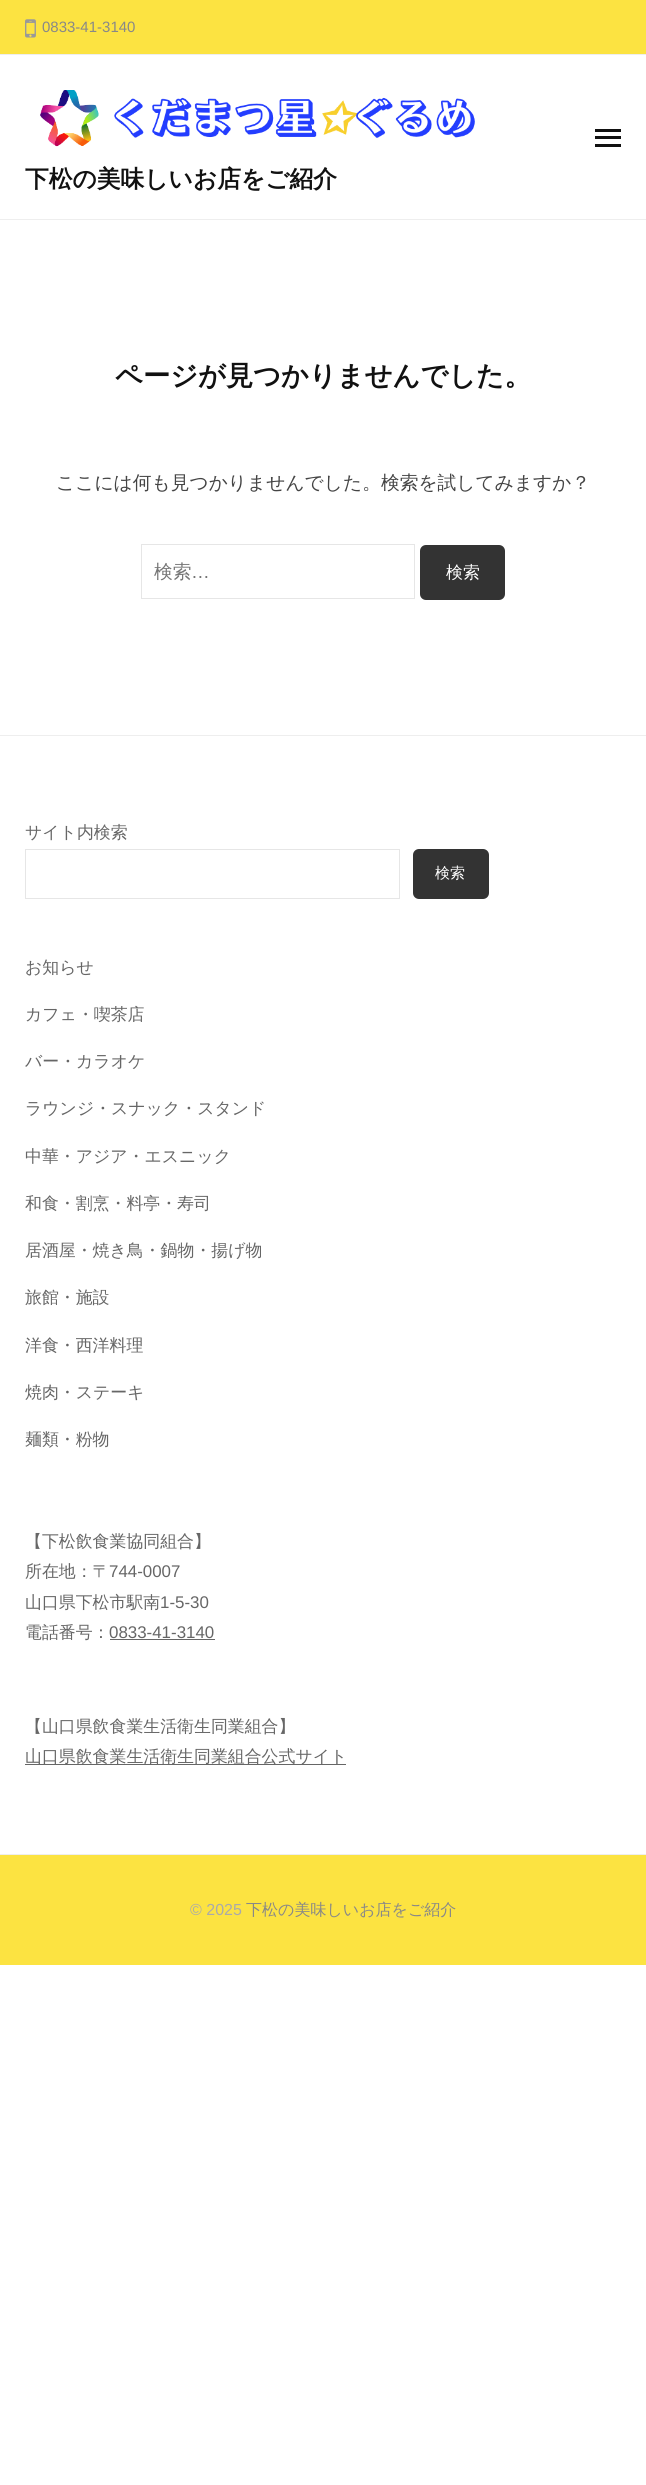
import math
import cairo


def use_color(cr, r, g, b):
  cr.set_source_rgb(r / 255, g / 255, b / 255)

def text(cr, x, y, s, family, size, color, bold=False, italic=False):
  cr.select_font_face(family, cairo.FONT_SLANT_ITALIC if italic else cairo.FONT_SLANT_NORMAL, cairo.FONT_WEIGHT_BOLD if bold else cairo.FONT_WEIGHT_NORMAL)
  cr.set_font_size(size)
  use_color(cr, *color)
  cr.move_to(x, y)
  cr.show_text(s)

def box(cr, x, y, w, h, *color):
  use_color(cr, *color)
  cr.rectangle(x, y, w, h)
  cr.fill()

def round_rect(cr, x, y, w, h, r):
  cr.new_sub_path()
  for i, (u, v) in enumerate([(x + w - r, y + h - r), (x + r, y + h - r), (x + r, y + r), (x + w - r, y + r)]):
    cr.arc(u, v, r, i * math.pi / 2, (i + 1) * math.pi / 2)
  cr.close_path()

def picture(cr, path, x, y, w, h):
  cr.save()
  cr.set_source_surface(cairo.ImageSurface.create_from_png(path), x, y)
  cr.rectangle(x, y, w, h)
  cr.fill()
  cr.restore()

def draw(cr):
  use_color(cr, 255, 255, 255)
  cr.paint()
  box(cr, 0, 219, 646, 1, 238, 238, 238)
  box(cr, 0, 0, 646, 54, 252, 227, 65)
  box(cr, 0, 54, 646, 1, 238, 238, 238)
  picture(cr, "img_01.png", 25, 19, 11, 19)
  box(cr, 595, 136, 26, 3, 17, 17, 17)
  box(cr, 595, 129, 26, 3, 17, 17, 17)
  box(cr, 595, 144, 26, 3, 17, 17, 17)
  picture(cr, "img_02.png", 40, 90, 435, 57)
  cr.rectangle(141.5, 544.5, 273, 54)
  use_color(cr, 230, 230, 230)
  cr.set_line_width(1)
  cr.stroke()
  use_color(cr, 51, 51, 51)
  round_rect(cr, 420, 545, 85, 55, 6)
  cr.fill()
  box(cr, 0, 735, 646, 1, 238, 238, 238)
  cr.rectangle(25.5, 849.5, 374, 49)
  use_color(cr, 230, 230, 230)
  cr.stroke()
  use_color(cr, 51, 51, 51)
  round_rect(cr, 413, 849, 76, 50, 6)
  cr.fill()
  box(cr, 110, 1639, 105, 1, 102, 102, 102)
  box(cr, 25, 1764, 321, 1, 102, 102, 102)
  box(cr, 0, 1855, 646, 110, 252, 227, 65)
  box(cr, 0, 1854, 646, 1, 238, 238, 238)
  text(cr, 42, 32, "0833-41-3140", "Liberation Sans", 15, (136, 136, 136))
  text(cr, 25, 187, "下松の美味しいお店をご紹介", "WenQuanYi Zen Hei", 23.75, (17, 17, 17), bold=True)
  text(cr, 115, 385, "ページが見つかりませんでした。", "WenQuanYi Zen Hei", 27.25, (17, 17, 17), bold=True)
  text(cr, 56, 489, "ここには何も見つかりませんでした。検索を試してみますか？", "WenQuanYi Zen Hei Medium", 18.75, (68, 68, 68))
  text(cr, 154, 578, "検索", "WenQuanYi Zen Hei Medium", 18.75, (117, 117, 117))
  text(cr, 191, 578, "…", "Liberation Sans", 18.75, (117, 117, 117))
  text(cr, 446, 578, "検索", "WenQuanYi Zen Hei Medium", 16.9, (255, 255, 255))
  text(cr, 25, 838, "サイト内検索", "WenQuanYi Zen Hei Medium", 16.9, (102, 102, 102))
  text(cr, 435, 878, "検索", "WenQuanYi Zen Hei Medium", 15, (255, 255, 255))
  text(cr, 25, 973, "お知らせ", "WenQuanYi Zen Hei Medium", 16.9, (102, 102, 102))
  text(cr, 25, 1020, "カフェ・喫茶店", "WenQuanYi Zen Hei Medium", 16.9, (102, 102, 102))
  text(cr, 25, 1067, "バー・カラオケ", "WenQuanYi Zen Hei Medium", 16.9, (102, 102, 102))
  text(cr, 25, 1114, "ラウンジ・スナック・スタンド", "WenQuanYi Zen Hei Medium", 16.9, (102, 102, 102))
  text(cr, 25, 1162, "中華・アジア・エスニック", "WenQuanYi Zen Hei Medium", 16.9, (102, 102, 102))
  text(cr, 25, 1209, "和食・割烹・料亭・寿司", "WenQuanYi Zen Hei Medium", 16.9, (102, 102, 102))
  text(cr, 25, 1256, "居酒屋・焼き鳥・鍋物・揚げ物", "WenQuanYi Zen Hei Medium", 16.9, (102, 102, 102))
  text(cr, 25, 1303, "旅館・施設", "WenQuanYi Zen Hei Medium", 16.9, (102, 102, 102))
  text(cr, 25, 1351, "洋食・西洋料理", "WenQuanYi Zen Hei Medium", 16.9, (102, 102, 102))
  text(cr, 25, 1398, "焼肉・ステーキ", "WenQuanYi Zen Hei Medium", 16.9, (102, 102, 102))
  text(cr, 25, 1445, "麺類・粉物", "WenQuanYi Zen Hei Medium", 16.9, (102, 102, 102))
  text(cr, 25, 1547, "【下松飲食業協同組合】", "WenQuanYi Zen Hei Medium", 16.9, (102, 102, 102))
  text(cr, 25, 1577, "所在地：〒", "WenQuanYi Zen Hei Medium", 16.9, (102, 102, 102))
  text(cr, 109, 1577, "744-0007", "Liberation Sans", 16.9, (102, 102, 102))
  text(cr, 25, 1608, "山口県下松市駅南", "WenQuanYi Zen Hei Medium", 16.9, (102, 102, 102))
  text(cr, 160, 1608, "1-5-30", "Liberation Sans", 16.9, (102, 102, 102))
  text(cr, 25, 1638, "電話番号：", "WenQuanYi Zen Hei Medium", 16.9, (102, 102, 102))
  text(cr, 109, 1638, "0833-41-3140", "Liberation Sans", 16.9, (102, 102, 102))
  text(cr, 25, 1732, "【山口県飲食業生活衛生同業組合】", "WenQuanYi Zen Hei Medium", 16.9, (102, 102, 102))
  text(cr, 25, 1762, "山口県飲食業生活衛生同業組合公式サイト", "WenQuanYi Zen Hei Medium", 16.9, (102, 102, 102))
  text(cr, 190, 1915, "© 2025", "Liberation Sans", 16, (170, 170, 170))
  text(cr, 246, 1915, "下松の美味しいお店をご紹介", "WenQuanYi Zen Hei Medium", 16, (136, 136, 136))


surface = cairo.ImageSurface(cairo.FORMAT_RGB24, 646, 2485)
cr = cairo.Context(surface)
options = cairo.FontOptions()
options.set_hint_metrics(cairo.HINT_METRICS_OFF)
options.set_hint_style(cairo.HINT_STYLE_NONE)
cr.set_font_options(options)
cr.set_miter_limit(4)
draw(cr)
surface.write_to_png("out.png")
